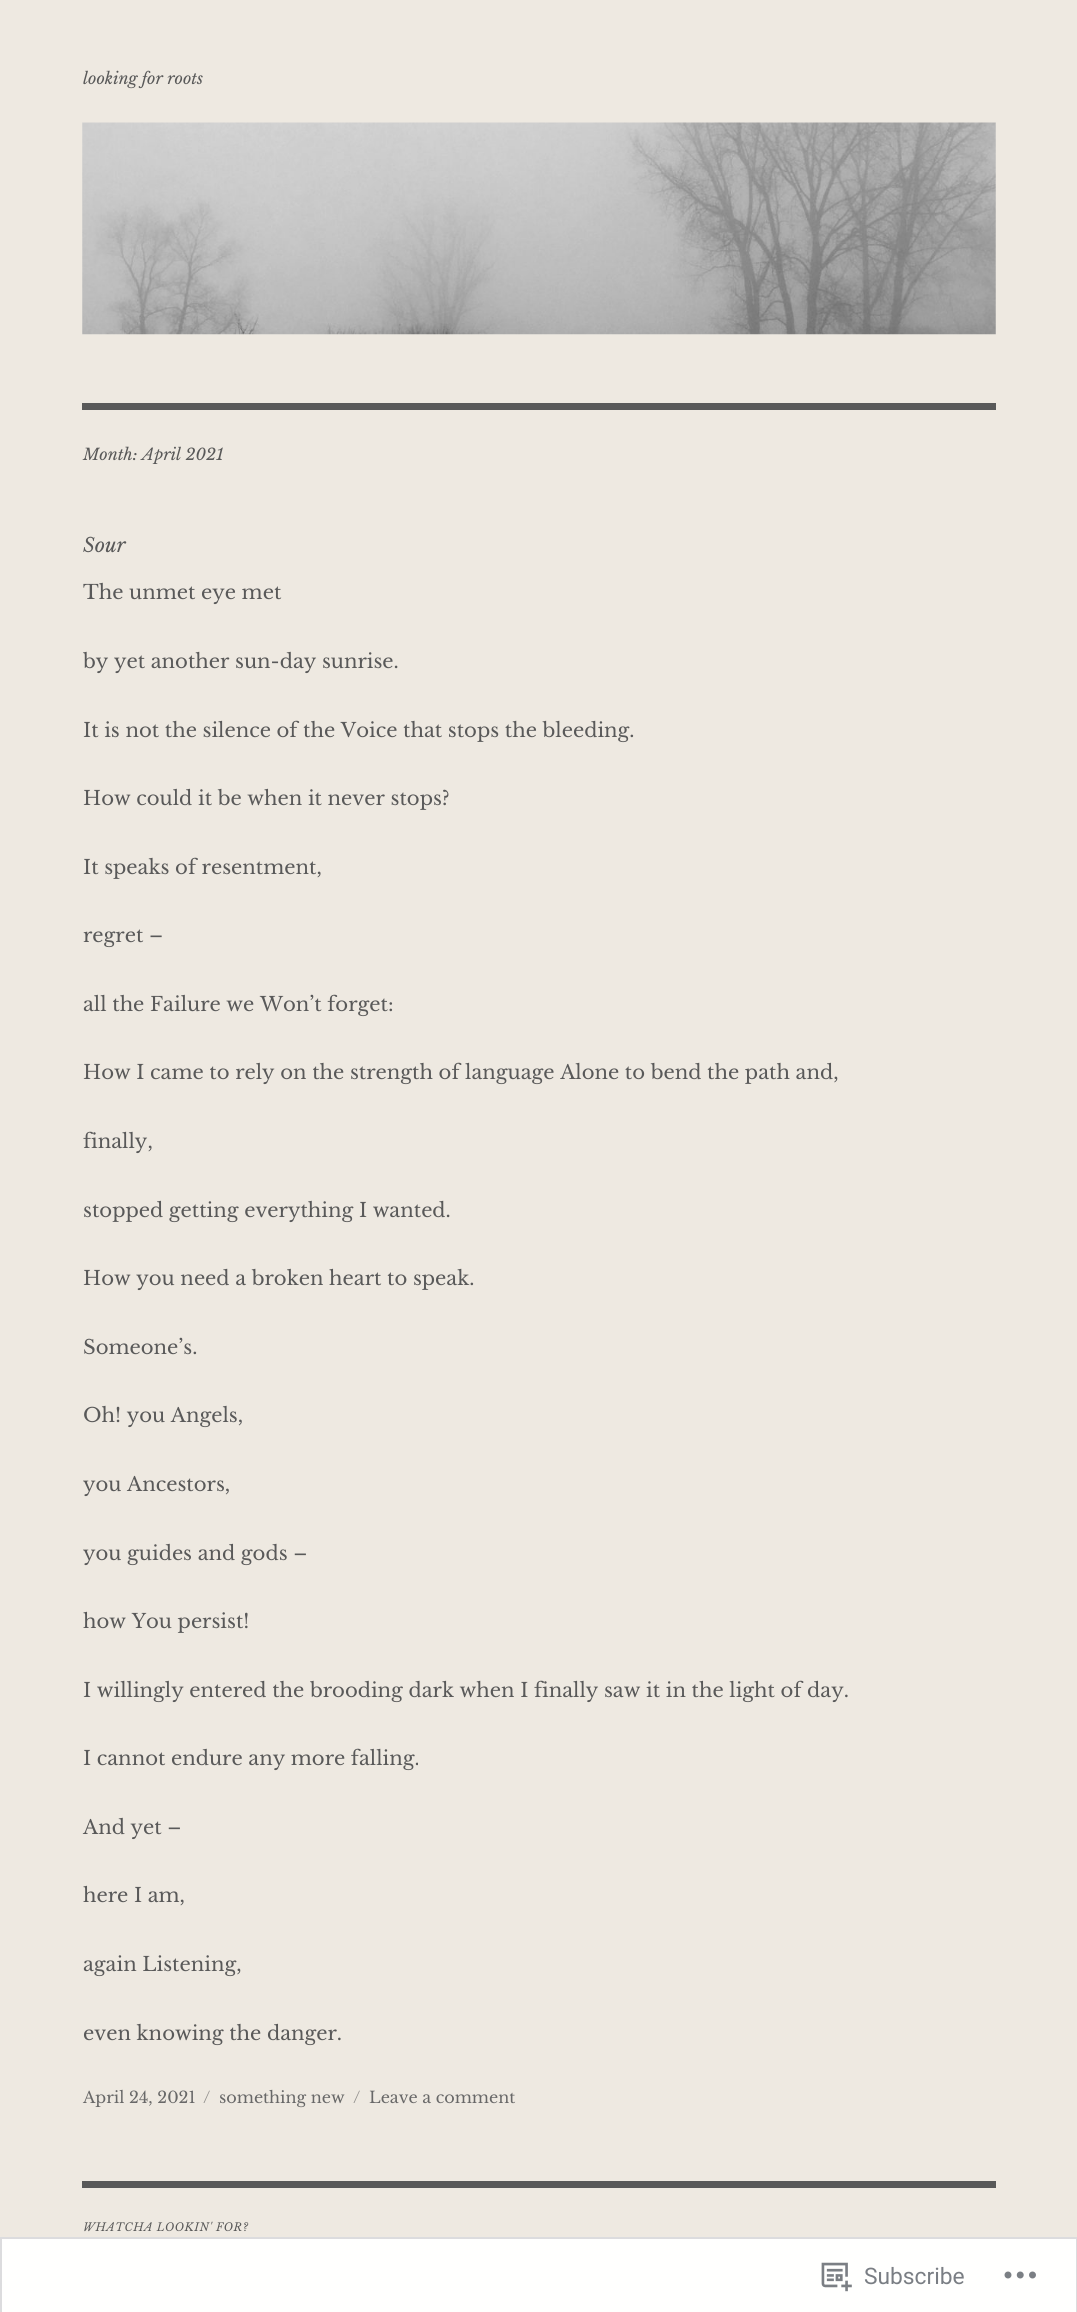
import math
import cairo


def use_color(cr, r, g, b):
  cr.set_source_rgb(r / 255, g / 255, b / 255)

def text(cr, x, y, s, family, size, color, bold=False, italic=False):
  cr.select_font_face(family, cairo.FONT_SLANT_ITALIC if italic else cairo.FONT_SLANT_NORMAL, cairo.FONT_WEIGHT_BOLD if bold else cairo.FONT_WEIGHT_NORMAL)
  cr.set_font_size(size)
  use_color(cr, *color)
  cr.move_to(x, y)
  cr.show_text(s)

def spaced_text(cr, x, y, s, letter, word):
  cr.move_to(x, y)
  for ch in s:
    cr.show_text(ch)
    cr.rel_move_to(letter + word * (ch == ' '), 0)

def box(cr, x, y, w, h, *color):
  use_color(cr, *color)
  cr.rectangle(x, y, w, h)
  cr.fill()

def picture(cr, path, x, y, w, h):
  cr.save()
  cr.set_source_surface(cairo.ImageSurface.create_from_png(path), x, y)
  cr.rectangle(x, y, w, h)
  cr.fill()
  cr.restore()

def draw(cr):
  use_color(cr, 238, 233, 225)
  cr.paint()
  picture(cr, "img_01.png", 82, 122, 914, 213)
  box(cr, 82, 403, 914, 7, 89, 89, 89)
  box(cr, 82, 2181, 914, 7, 89, 89, 89)
  use_color(cr, 255, 255, 254)
  cr.rectangle(1, 2238, 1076, 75)
  cr.fill_preserve()
  use_color(cr, 220, 220, 222)
  cr.stroke()
  picture(cr, "img_02.png", 821, 2262, 31, 30)
  picture(cr, "img_03.png", 1004, 2271, 32, 8)
  text(cr, 83, 84, "looking for roots", "Libre Baskerville", 16, (89, 89, 89), italic=True)
  text(cr, 83, 460, "Month: April 2021", "Libre Baskerville", 16, (89, 89, 89), italic=True)
  text(cr, 83, 552, "Sour", "Libre Baskerville", 19.6, (89, 89, 89), italic=True)
  text(cr, 83, 599, "The unmet eye met", "Libre Baskerville", 19.6, (89, 89, 89))
  text(cr, 83, 668, "by yet another sun-day sunrise.", "Libre Baskerville", 19.6, (89, 89, 89))
  text(cr, 83, 737, "It is not the silence of the Voice that stops the bleeding.", "Libre Baskerville", 19.6, (89, 89, 89))
  text(cr, 83, 805, "How could it be when it never stops?", "Libre Baskerville", 19.6, (89, 89, 89))
  text(cr, 83, 874, "It speaks of resentment,", "Libre Baskerville", 19.6, (89, 89, 89))
  text(cr, 83, 942, "regret –", "Libre Baskerville", 19.6, (89, 89, 89))
  text(cr, 83, 1011, "all the Failure we Won’t forget:", "Libre Baskerville", 19.6, (89, 89, 89))
  text(cr, 83, 1079, "How I came to rely on the strength of language Alone to bend the path and,", "Libre Baskerville", 19.6, (89, 89, 89))
  text(cr, 83, 1148, "finally,", "Libre Baskerville", 19.6, (89, 89, 89))
  text(cr, 83, 1217, "stopped getting everything I wanted.", "Libre Baskerville", 19.6, (89, 89, 89))
  text(cr, 83, 1285, "How you need a broken heart to speak.", "Libre Baskerville", 19.6, (89, 89, 89))
  text(cr, 83, 1354, "Someone’s.", "Libre Baskerville", 19.6, (89, 89, 89))
  text(cr, 83, 1422, "Oh! you Angels,", "Libre Baskerville", 19.6, (89, 89, 89))
  text(cr, 83, 1491, "you Ancestors,", "Libre Baskerville", 19.6, (89, 89, 89))
  text(cr, 83, 1560, "you guides and gods –", "Libre Baskerville", 19.6, (89, 89, 89))
  text(cr, 83, 1628, "how You persist!", "Libre Baskerville", 19.6, (89, 89, 89))
  text(cr, 83, 1697, "I willingly entered the brooding dark when I finally saw it in the light of day.", "Libre Baskerville", 19.6, (89, 89, 89))
  text(cr, 83, 1765, "I cannot endure any more falling.", "Libre Baskerville", 19.6, (89, 89, 89))
  text(cr, 83, 1834, "And yet –", "Libre Baskerville", 19.6, (89, 89, 89))
  text(cr, 83, 1902, "here I am,", "Libre Baskerville", 19.6, (89, 89, 89))
  text(cr, 83, 1971, "again Listening,", "Libre Baskerville", 19.6, (89, 89, 89))
  text(cr, 83, 2040, "even knowing the danger.", "Libre Baskerville", 19.6, (89, 89, 89))
  text(cr, 83, 2103, "April 24, 2021", "Libre Baskerville", 16, (104, 104, 104))
  text(cr, 203, 2103, "/", "Libre Baskerville", 16, (144, 143, 140))
  text(cr, 219, 2103, "something new", "Libre Baskerville", 16, (104, 104, 104))
  text(cr, 353, 2103, "/", "Libre Baskerville", 16, (144, 143, 140))
  text(cr, 369, 2103, "Leave a comment", "Libre Baskerville", 16, (104, 104, 104))
  cr.select_font_face("Libre Baskerville", cairo.FONT_SLANT_ITALIC)
  cr.set_font_size(11.25)
  use_color(cr, 89, 89, 89)
  spaced_text(cr, 83, 2231, "WHATCHA LOOKIN' FOR?", 0.5, 0)
  text(cr, 864, 2284, "Subscribe", "Roboto", 22.75, (122, 126, 132))


surface = cairo.ImageSurface(cairo.FORMAT_RGB24, 1077, 2312)
cr = cairo.Context(surface)
options = cairo.FontOptions()
options.set_hint_metrics(cairo.HINT_METRICS_OFF)
options.set_hint_style(cairo.HINT_STYLE_NONE)
cr.set_font_options(options)
cr.set_miter_limit(4)
draw(cr)
surface.write_to_png("out.png")
